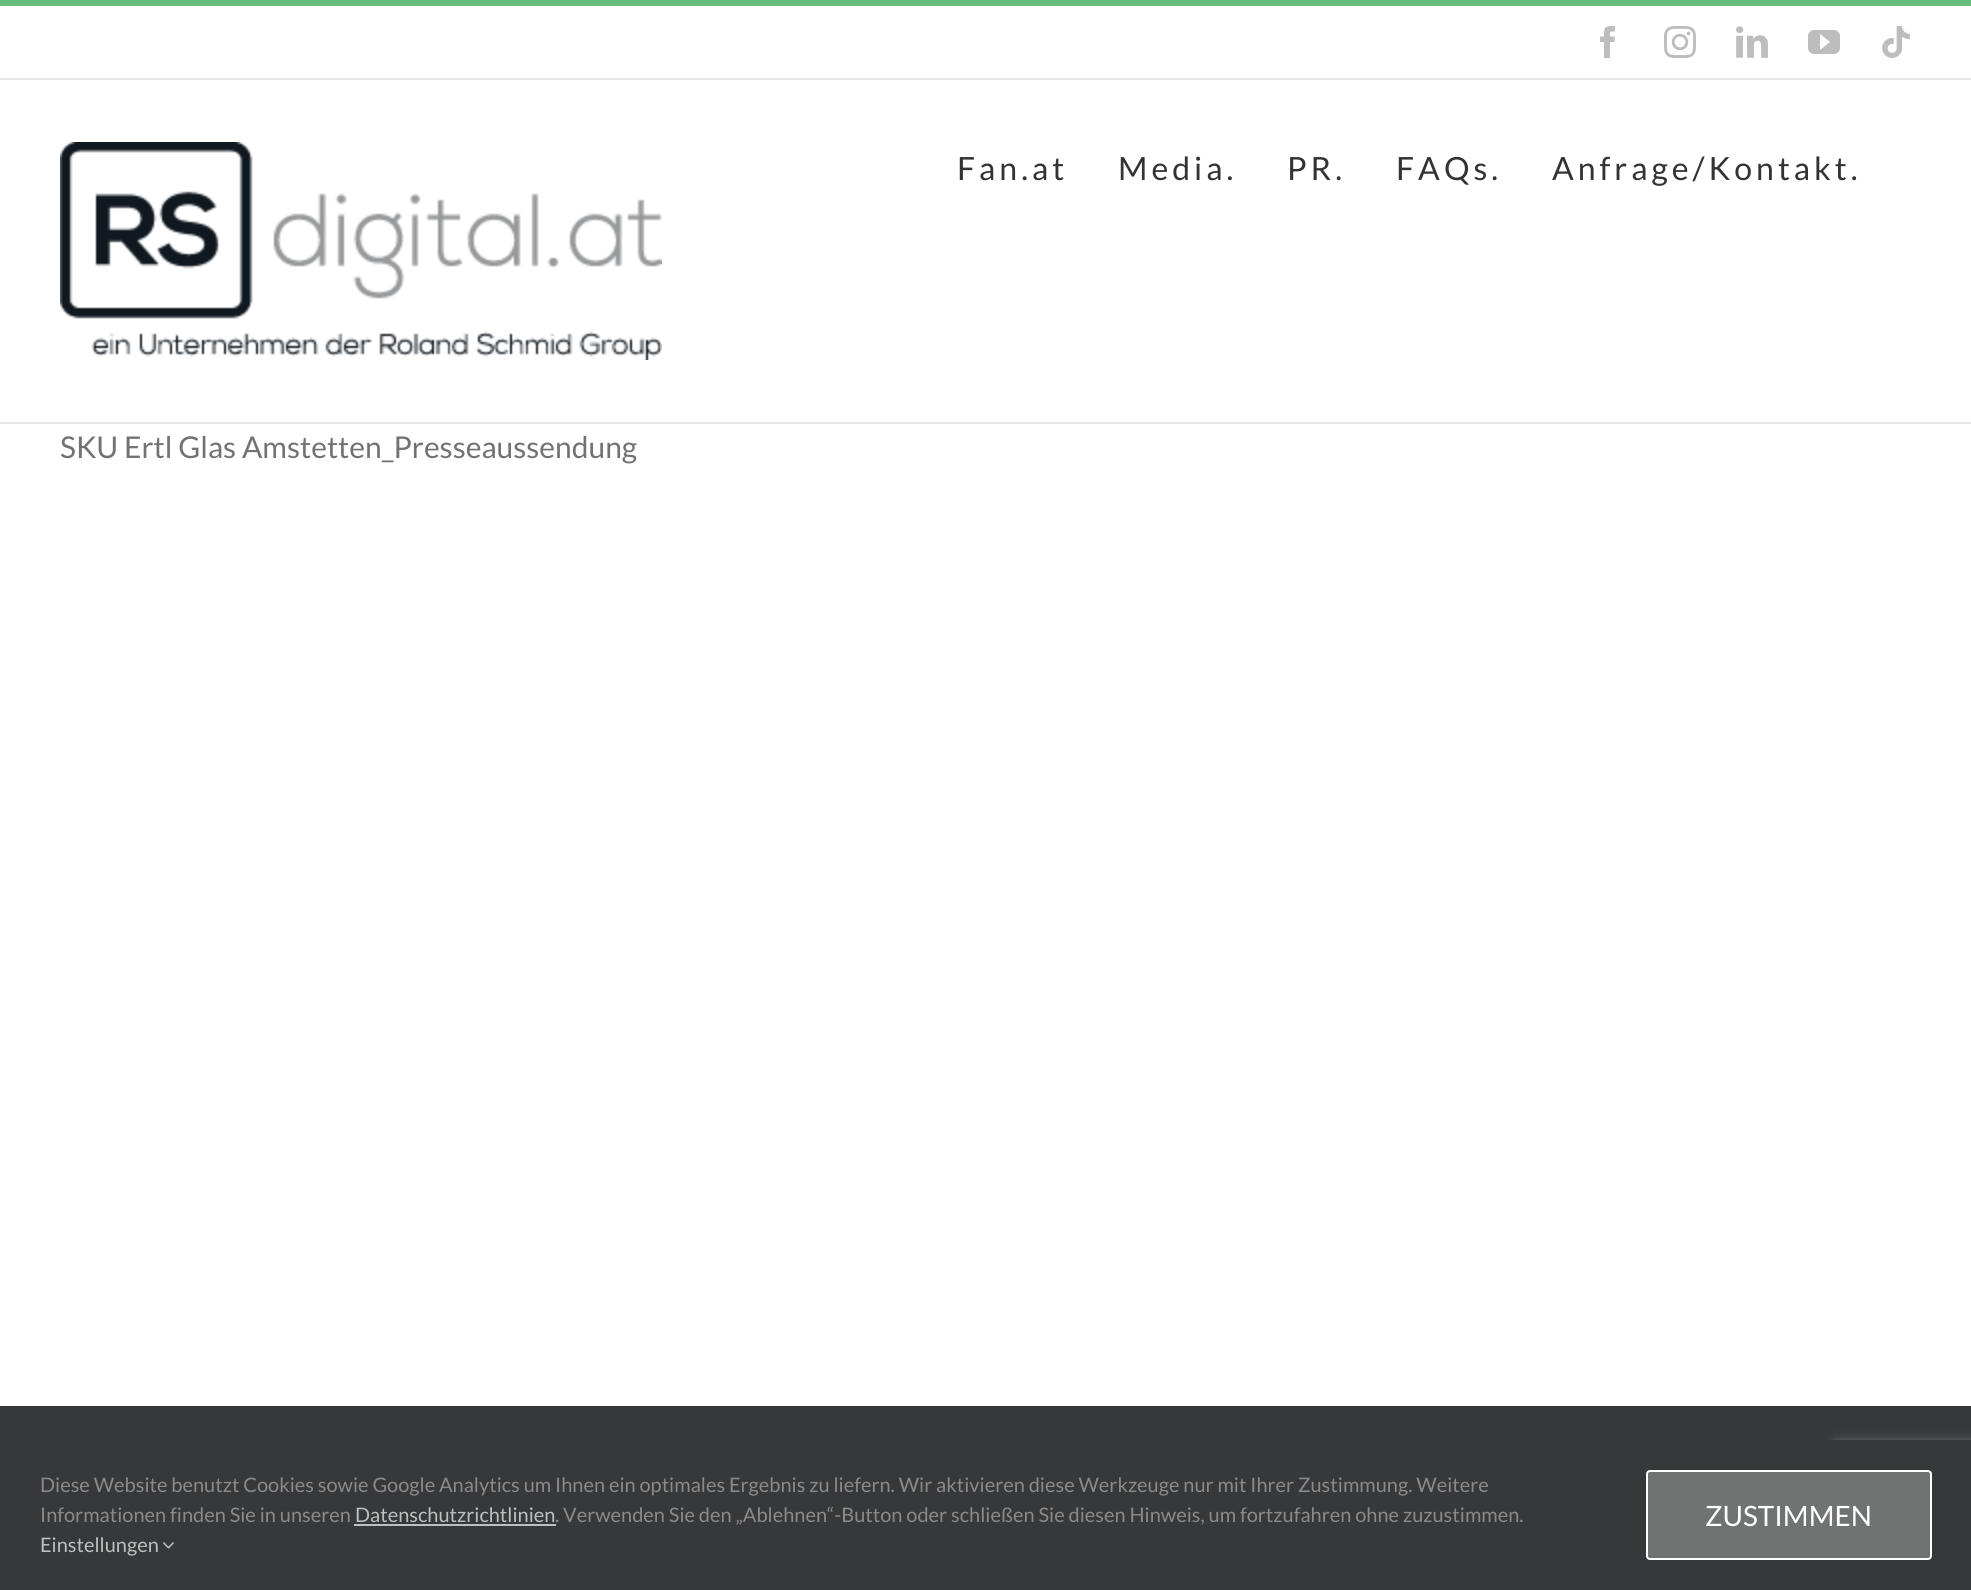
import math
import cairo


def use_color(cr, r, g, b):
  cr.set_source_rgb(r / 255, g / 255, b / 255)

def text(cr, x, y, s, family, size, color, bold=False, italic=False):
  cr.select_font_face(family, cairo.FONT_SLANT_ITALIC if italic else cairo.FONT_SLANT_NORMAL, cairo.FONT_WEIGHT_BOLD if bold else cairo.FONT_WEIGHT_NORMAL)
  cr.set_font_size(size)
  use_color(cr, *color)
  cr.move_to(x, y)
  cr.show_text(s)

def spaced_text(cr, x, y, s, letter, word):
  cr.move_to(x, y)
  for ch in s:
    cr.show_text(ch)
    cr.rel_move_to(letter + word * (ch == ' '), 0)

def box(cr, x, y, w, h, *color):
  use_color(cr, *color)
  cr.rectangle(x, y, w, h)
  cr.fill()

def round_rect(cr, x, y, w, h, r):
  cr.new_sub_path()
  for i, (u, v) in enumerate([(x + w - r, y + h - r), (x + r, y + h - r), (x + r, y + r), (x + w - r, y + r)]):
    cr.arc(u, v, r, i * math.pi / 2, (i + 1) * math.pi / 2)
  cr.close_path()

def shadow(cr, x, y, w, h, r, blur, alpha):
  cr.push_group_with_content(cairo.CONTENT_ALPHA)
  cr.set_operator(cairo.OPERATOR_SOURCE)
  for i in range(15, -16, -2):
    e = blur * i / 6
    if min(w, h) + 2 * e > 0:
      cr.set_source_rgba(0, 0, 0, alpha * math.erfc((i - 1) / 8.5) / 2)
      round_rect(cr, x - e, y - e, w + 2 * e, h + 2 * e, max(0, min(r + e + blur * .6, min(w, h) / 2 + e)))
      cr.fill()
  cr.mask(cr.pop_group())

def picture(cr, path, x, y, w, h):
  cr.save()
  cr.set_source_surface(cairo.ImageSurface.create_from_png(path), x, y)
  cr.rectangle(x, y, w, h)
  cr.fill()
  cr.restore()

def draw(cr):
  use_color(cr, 255, 255, 255)
  cr.paint()
  box(cr, 0, 0, 1971, 6, 101, 188, 123)
  box(cr, 0, 78, 1971, 2, 229, 229, 229)
  picture(cr, "img_01.png", 1600, 26, 15, 32)
  picture(cr, "img_02.png", 1664, 26, 32, 32)
  picture(cr, "img_03.png", 1736, 26, 32, 32)
  picture(cr, "img_04.png", 1808, 30, 32, 24)
  picture(cr, "img_05.png", 1882, 26, 28, 32)
  box(cr, 0, 422, 1971, 2, 229, 229, 229)
  picture(cr, "img_06.png", 60, 142, 602, 218)
  box(cr, 0, 1406, 1971, 34, 54, 56, 57)
  use_color(cr, 128, 128, 128)
  shadow(cr, 1832, 1442, 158, 120, 4, 5, 1)
  box(cr, 0, 1440, 1971, 150, 54, 56, 57)
  box(cr, 354, 1524, 202, 2, 191, 191, 191)
  picture(cr, "img_07.png", 162, 1542, 12, 7)
  use_color(cr, 112, 115, 114)
  round_rect(cr, 1647, 1471, 284, 88, 3)
  cr.fill_preserve()
  use_color(cr, 255, 255, 255)
  cr.stroke()
  cr.select_font_face("Lato")
  cr.set_font_size(32)
  use_color(cr, 51, 51, 51)
  spaced_text(cr, 957, 180, "Fan.at", 4, 0)
  spaced_text(cr, 1118, 180, "Media.", 4, 0)
  spaced_text(cr, 1287, 180, "PR.", 4, 0)
  spaced_text(cr, 1396, 180, "FAQs.", 4, 0)
  spaced_text(cr, 1552, 180, "Anfrage/Kontakt.", 4, 0)
  text(cr, 60, 458, "SKU Ertl Glas Amstetten_Presseaussendung", "Lato", 30, (112, 115, 114))
  text(cr, 40, 1492, "Diese Website benutzt Cookies sowie Google Analytics um Ihnen ein optimales Ergebnis zu liefern. Wir aktivieren diese Werkzeuge nur mit Ihrer Zustimmung. Weitere", "Lato", 20, (140, 137, 137))
  text(cr, 40, 1522, "Informationen finden Sie in unseren", "Lato", 20, (140, 137, 137))
  text(cr, 355, 1522, "Datenschutzrichtlinien", "Lato", 20, (191, 191, 191))
  text(cr, 555, 1522, ". Verwenden Sie den „Ablehnen“-Button oder schließen Sie diesen Hinweis, um fortzufahren ohne zuzustimmen.", "Lato", 20, (140, 137, 137))
  text(cr, 40, 1552, "Einstellungen", "Lato", 20, (191, 191, 191))
  text(cr, 1705, 1526, "ZUSTIMMEN", "Lato", 28, (255, 255, 255))


surface = cairo.ImageSurface(cairo.FORMAT_RGB24, 1971, 1590)
cr = cairo.Context(surface)
options = cairo.FontOptions()
options.set_hint_metrics(cairo.HINT_METRICS_OFF)
options.set_hint_style(cairo.HINT_STYLE_NONE)
cr.set_font_options(options)
cr.set_miter_limit(4)
draw(cr)
surface.write_to_png("out.png")
